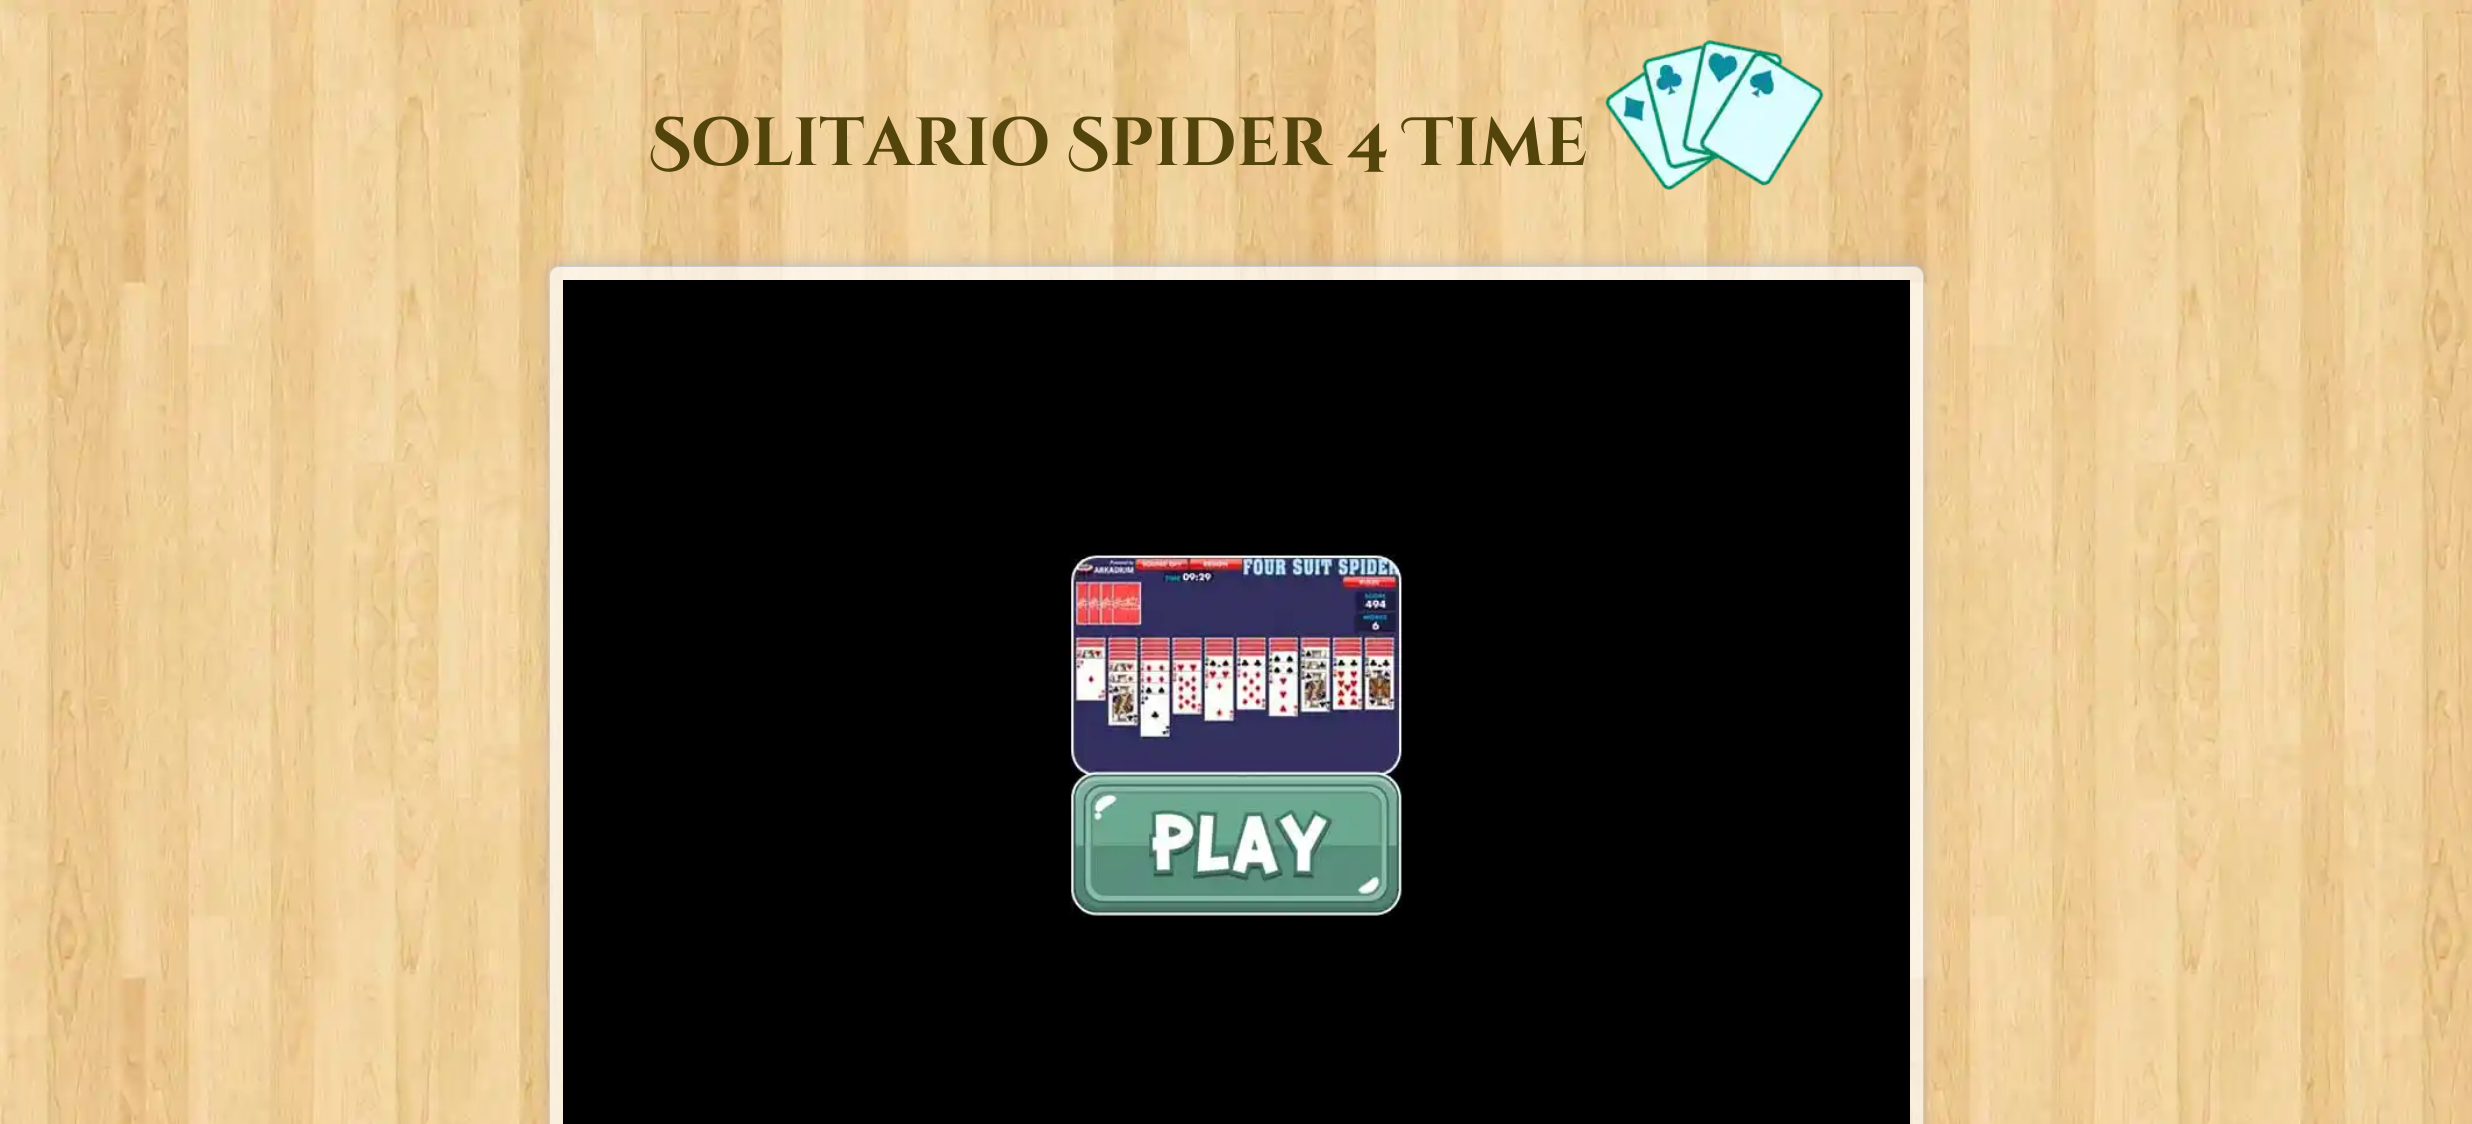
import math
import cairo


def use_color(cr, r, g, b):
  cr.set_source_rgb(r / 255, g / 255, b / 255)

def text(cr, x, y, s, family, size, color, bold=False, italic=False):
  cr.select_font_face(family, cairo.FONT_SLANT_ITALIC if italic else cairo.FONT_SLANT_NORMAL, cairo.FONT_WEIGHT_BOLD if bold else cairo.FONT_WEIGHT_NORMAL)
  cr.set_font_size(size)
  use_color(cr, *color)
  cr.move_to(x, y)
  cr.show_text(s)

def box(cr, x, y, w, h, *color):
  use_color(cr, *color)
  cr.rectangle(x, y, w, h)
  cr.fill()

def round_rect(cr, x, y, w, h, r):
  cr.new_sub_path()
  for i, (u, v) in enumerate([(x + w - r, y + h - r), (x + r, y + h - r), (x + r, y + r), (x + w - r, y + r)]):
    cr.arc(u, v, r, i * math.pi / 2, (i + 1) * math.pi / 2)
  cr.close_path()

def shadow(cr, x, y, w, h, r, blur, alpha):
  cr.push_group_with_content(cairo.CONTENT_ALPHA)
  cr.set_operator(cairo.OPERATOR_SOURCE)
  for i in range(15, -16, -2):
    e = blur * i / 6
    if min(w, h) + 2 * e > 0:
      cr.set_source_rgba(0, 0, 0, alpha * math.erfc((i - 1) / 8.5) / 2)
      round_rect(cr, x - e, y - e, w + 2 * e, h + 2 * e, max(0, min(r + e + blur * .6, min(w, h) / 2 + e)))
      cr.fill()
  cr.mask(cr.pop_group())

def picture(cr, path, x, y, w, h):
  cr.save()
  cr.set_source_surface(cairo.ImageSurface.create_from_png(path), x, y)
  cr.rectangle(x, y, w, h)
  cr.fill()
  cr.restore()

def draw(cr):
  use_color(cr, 255, 255, 255)
  cr.paint()
  picture(cr, "img_01.png", 0, 0, 2472, 1124)
  picture(cr, "img_02.png", 1605, 40, 219, 150)
  cr.save()
  cr.set_fill_rule(cairo.FILL_RULE_EVEN_ODD)
  cr.new_path()
  cr.move_to(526, 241)
  cr.line_to(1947, 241)
  cr.line_to(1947, 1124)
  cr.line_to(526, 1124)
  cr.close_path()
  cr.move_to(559, 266)
  cr.line_to(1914, 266)
  cr.curve_to(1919.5, 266, 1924, 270.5, 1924, 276)
  cr.line_to(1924, 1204)
  cr.curve_to(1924, 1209.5, 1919.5, 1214, 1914, 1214)
  cr.line_to(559, 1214)
  cr.curve_to(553.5, 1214, 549, 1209.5, 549, 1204)
  cr.line_to(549, 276)
  cr.curve_to(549, 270.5, 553.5, 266, 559, 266)
  cr.close_path()
  cr.clip()
  use_color(cr, 181, 175, 181)
  shadow(cr, 548, 263, 1377, 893, 11, 7, 0.59)
  cr.restore()
  cr.set_source_rgba(1, 1, 1, 0.7)
  round_rect(cr, 549.5, 266.5, 1374, 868, 9.5)
  cr.fill_preserve()
  use_color(cr, 204, 204, 204)
  cr.set_line_width(1)
  cr.stroke()
  box(cr, 563, 280, 1347, 844, 0, 0, 0)
  picture(cr, "img_03.png", 1070, 554, 333, 363)
  text(cr, 649, 165, "Solitario Spider 4 Time", "Cinzel Decorative", 68, (82, 68, 10), bold=True)


surface = cairo.ImageSurface(cairo.FORMAT_RGB24, 2472, 1124)
cr = cairo.Context(surface)
options = cairo.FontOptions()
options.set_hint_metrics(cairo.HINT_METRICS_OFF)
options.set_hint_style(cairo.HINT_STYLE_NONE)
cr.set_font_options(options)
cr.set_miter_limit(4)
draw(cr)
surface.write_to_png("out.png")
